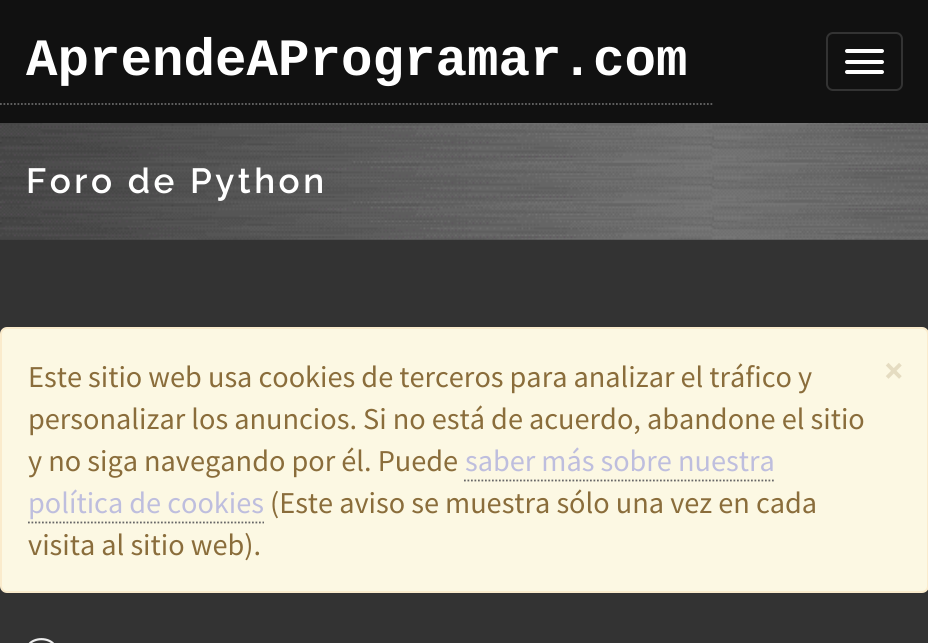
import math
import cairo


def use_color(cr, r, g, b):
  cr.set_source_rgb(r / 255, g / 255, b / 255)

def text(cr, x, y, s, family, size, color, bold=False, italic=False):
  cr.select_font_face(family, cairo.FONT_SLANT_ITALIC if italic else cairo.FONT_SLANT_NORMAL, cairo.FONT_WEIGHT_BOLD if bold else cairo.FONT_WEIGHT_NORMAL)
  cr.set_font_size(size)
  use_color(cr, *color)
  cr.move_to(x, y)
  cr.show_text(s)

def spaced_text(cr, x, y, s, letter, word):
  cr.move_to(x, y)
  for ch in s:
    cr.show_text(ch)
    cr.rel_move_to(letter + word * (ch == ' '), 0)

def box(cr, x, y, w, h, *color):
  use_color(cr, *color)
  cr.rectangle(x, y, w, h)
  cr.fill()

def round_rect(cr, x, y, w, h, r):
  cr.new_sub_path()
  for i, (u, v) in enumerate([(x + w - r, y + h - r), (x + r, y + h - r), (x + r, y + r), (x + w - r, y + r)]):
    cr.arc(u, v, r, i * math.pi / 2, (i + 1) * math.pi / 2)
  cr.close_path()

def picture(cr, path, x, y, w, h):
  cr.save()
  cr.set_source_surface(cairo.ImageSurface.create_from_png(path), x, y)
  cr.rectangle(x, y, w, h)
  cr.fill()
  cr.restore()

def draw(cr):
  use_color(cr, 51, 51, 51)
  cr.paint()
  box(cr, 0, 0, 928, 123, 17, 17, 17)
  cr.new_path()
  cr.move_to(0, 104)
  cr.line_to(714, 104)
  use_color(cr, 102, 102, 102)
  cr.set_line_width(1.8)
  cr.set_dash([1.75, 1.75])
  cr.stroke()
  round_rect(cr, 827, 33, 75, 57, 6)
  use_color(cr, 51, 51, 51)
  cr.set_line_width(2)
  cr.set_dash([])
  cr.stroke()
  use_color(cr, 255, 255, 255)
  round_rect(cr, 845, 49, 39, 4, 2)
  cr.fill()
  round_rect(cr, 845, 60, 39, 4, 2)
  cr.fill()
  round_rect(cr, 845, 70, 39, 4, 2)
  cr.fill()
  picture(cr, "img_01.png", 0, 123, 928, 117)
  use_color(cr, 252, 248, 227)
  round_rect(cr, 1, 328, 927, 264, 6)
  cr.fill_preserve()
  use_color(cr, 250, 235, 204)
  cr.stroke()
  cr.new_path()
  cr.move_to(464, 480.5)
  cr.line_to(775, 480.5)
  use_color(cr, 102, 102, 102)
  cr.set_line_width(1.8)
  cr.set_dash([1.75, 1.75])
  cr.stroke()
  cr.new_path()
  cr.move_to(28, 522.5)
  cr.line_to(264, 522.5)
  cr.stroke()
  picture(cr, "img_02.png", 28, 638, 26, 5)
  text(cr, 26, 75, "AprendeAProgramar.com", "Liberation Mono", 52.5, (255, 255, 255), bold=True)
  cr.select_font_face("Raleway SemiBold")
  cr.set_font_size(35)
  spaced_text(cr, 26, 193, "Foro de Python", 3.5, 0)
  text(cr, 28, 387, "Este sitio web usa cookies de terceros para analizar el tráfico y", "Source Sans Pro", 30.3, (138, 109, 59))
  text(cr, 884, 383, "×", "Source Sans Pro", 37, (229, 220, 193), bold=True)
  text(cr, 28, 429, "personalizar los anuncios. Si no está de acuerdo, abandone el sitio", "Source Sans Pro", 30.3, (138, 109, 59))
  text(cr, 28, 471, "y no siga navegando por él. Puede", "Source Sans Pro", 30.3, (138, 109, 59))
  text(cr, 465, 471, "saber más sobre nuestra", "Source Sans Pro", 30.3, (190, 190, 222))
  text(cr, 28, 513, "política de cookies", "Source Sans Pro", 30.3, (190, 190, 222))
  text(cr, 270, 513, "(Este aviso se muestra sólo una vez en cada", "Source Sans Pro", 30.3, (138, 109, 59))
  text(cr, 28, 555, "visita al sitio web).", "Source Sans Pro", 30.3, (138, 109, 59))


surface = cairo.ImageSurface(cairo.FORMAT_RGB24, 928, 643)
cr = cairo.Context(surface)
options = cairo.FontOptions()
options.set_hint_metrics(cairo.HINT_METRICS_OFF)
options.set_hint_style(cairo.HINT_STYLE_NONE)
cr.set_font_options(options)
cr.set_miter_limit(4)
draw(cr)
surface.write_to_png("out.png")
